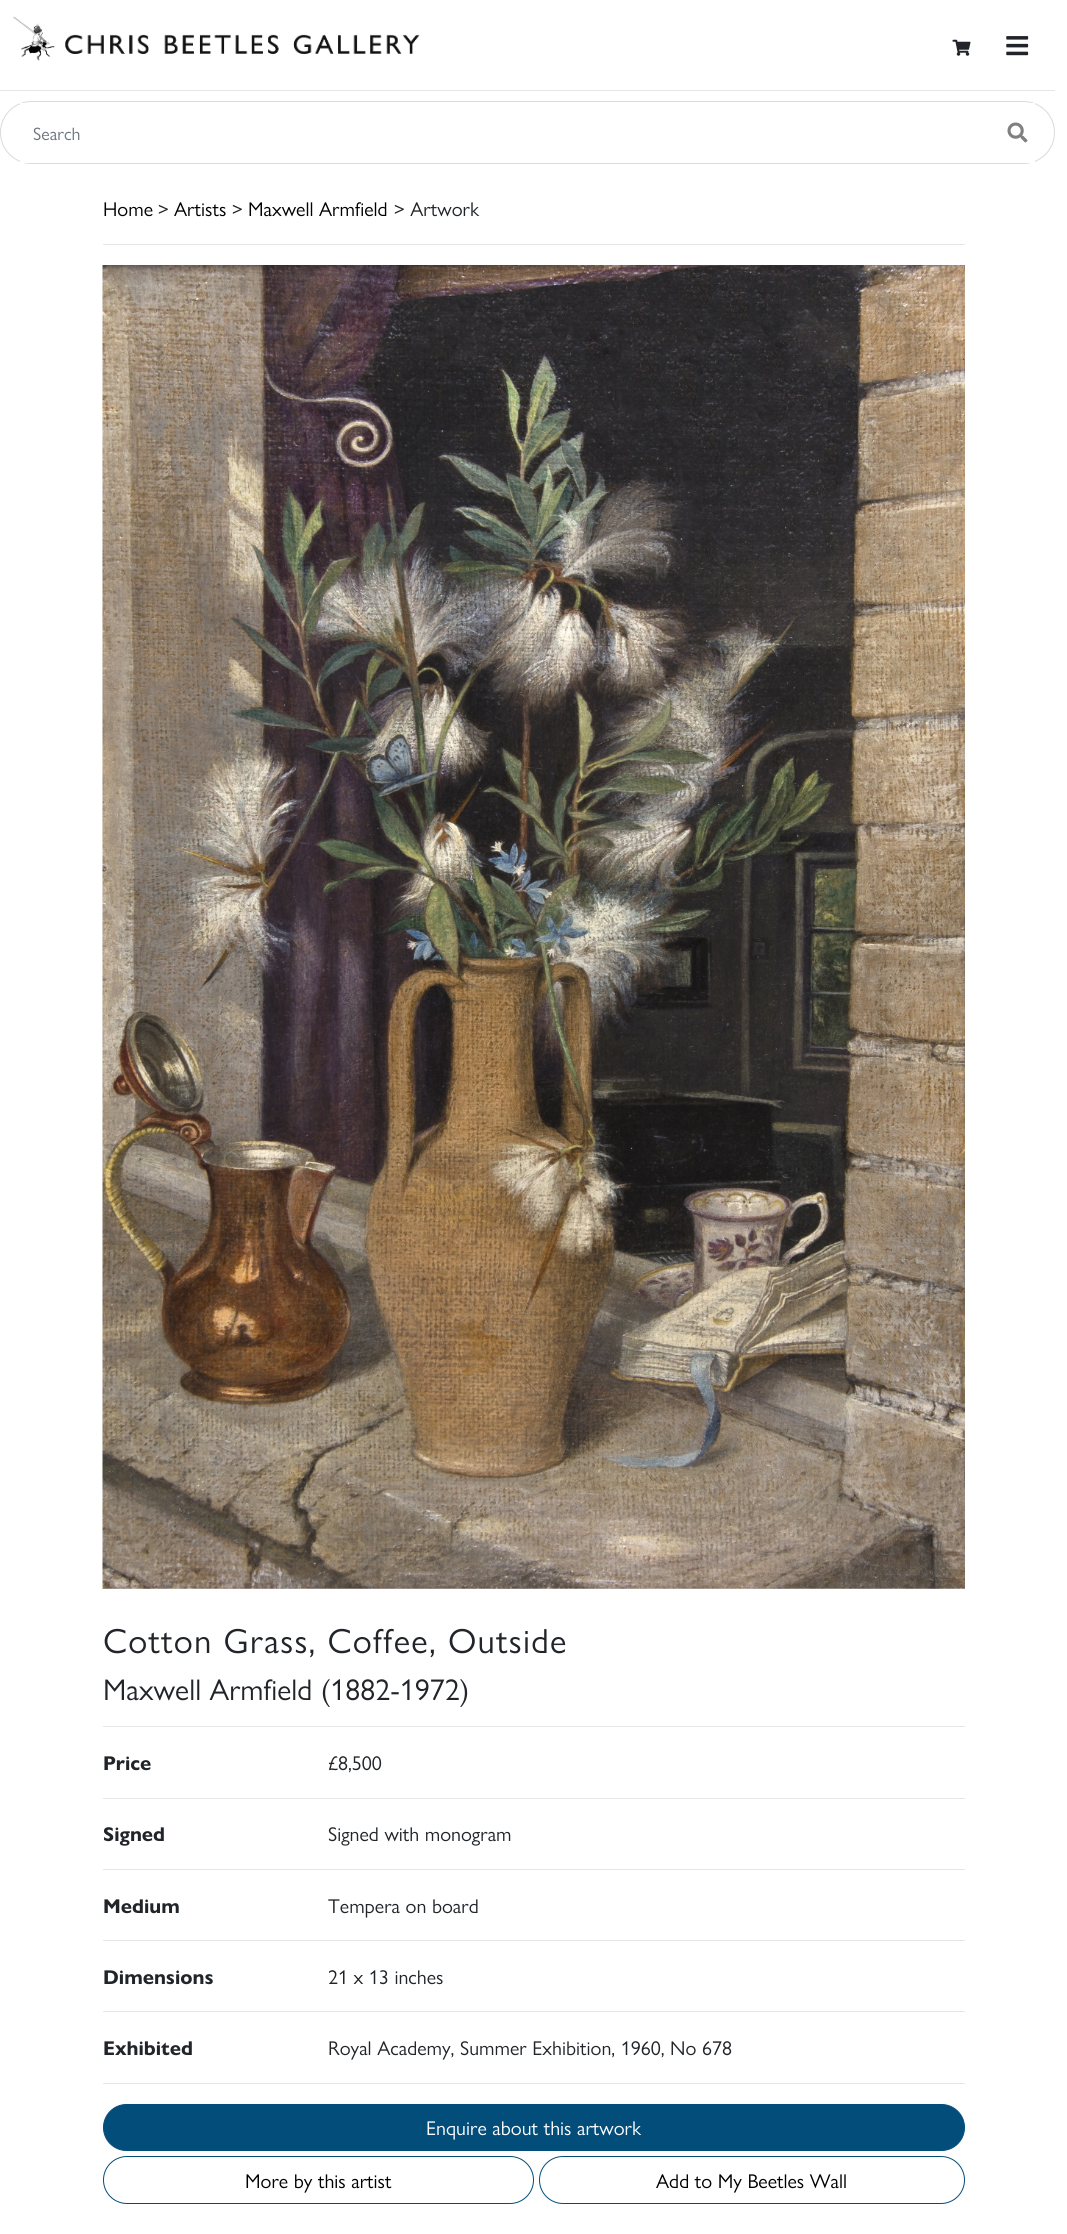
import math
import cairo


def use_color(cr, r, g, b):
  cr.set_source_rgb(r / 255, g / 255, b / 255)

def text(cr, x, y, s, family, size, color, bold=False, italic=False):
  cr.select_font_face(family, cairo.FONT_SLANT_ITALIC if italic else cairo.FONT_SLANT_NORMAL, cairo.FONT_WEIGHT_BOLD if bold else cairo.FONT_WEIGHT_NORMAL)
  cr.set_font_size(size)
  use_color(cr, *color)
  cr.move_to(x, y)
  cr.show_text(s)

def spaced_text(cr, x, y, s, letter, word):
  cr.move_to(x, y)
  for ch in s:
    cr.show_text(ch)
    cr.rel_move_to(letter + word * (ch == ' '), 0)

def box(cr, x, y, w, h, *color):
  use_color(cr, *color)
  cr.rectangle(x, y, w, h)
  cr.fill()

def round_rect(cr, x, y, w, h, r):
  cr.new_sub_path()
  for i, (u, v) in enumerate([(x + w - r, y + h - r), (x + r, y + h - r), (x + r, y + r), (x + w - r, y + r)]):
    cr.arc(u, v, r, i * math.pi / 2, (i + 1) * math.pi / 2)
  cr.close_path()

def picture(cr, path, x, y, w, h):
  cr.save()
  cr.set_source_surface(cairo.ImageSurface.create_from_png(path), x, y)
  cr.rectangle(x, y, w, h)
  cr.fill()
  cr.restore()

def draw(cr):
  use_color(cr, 255, 255, 255)
  cr.paint()
  picture(cr, "img_01.png", 13, 16, 407, 45)
  picture(cr, "img_02.png", 952, 39, 19, 17)
  picture(cr, "img_03.png", 1006, 36, 23, 20)
  box(cr, 0, 90, 1055, 1, 230, 230, 230)
  round_rect(cr, 0.5, 101.5, 1054, 62, 31)
  use_color(cr, 218, 218, 218)
  cr.set_line_width(1)
  cr.stroke()
  box(cr, 20, 103, 10, 60, 255, 255, 255)
  box(cr, 1025, 103, 10, 60, 255, 255, 255)
  picture(cr, "img_04.png", 1007, 122, 21, 21)
  box(cr, 103, 244, 862, 1, 230, 230, 230)
  picture(cr, "img_05.png", 102, 265, 863, 1324)
  box(cr, 103, 1726, 862, 1, 230, 230, 230)
  box(cr, 103, 1798, 862, 1, 230, 230, 230)
  box(cr, 103, 1869, 862, 1, 230, 230, 230)
  box(cr, 103, 1940, 862, 1, 230, 230, 230)
  box(cr, 103, 2011, 862, 1, 230, 230, 230)
  box(cr, 103, 2083, 862, 1, 230, 230, 230)
  use_color(cr, 3, 77, 123)
  round_rect(cr, 103.5, 2104.5, 861, 46, 23)
  cr.fill_preserve()
  cr.stroke()
  round_rect(cr, 103.5, 2156.5, 430, 47, 23.5)
  cr.stroke()
  round_rect(cr, 539.5, 2156.5, 425, 47, 23.5)
  cr.stroke()
  text(cr, 33, 140, "Search", "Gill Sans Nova", 18, (108, 117, 125))
  text(cr, 103, 216, "Home", "Gill Sans Nova", 20, (0, 0, 0))
  text(cr, 158, 216, ">", "Gill Sans Nova", 20, (33, 37, 41))
  text(cr, 174, 216, "Artists", "Gill Sans Nova", 20, (0, 0, 0))
  text(cr, 232, 216, ">", "Gill Sans Nova", 20, (33, 37, 41))
  text(cr, 248, 216, "Maxwell Armfield", "Gill Sans Nova", 20, (0, 0, 0))
  text(cr, 394, 216, "> Artwork", "Gill Sans Nova", 20, (33, 37, 41))
  cr.set_font_size(35)
  spaced_text(cr, 103, 1653, "Cotton Grass, Coffee, Outside", 1.25, 0)
  text(cr, 103, 1700, "Maxwell Armfield (1882-1972)", "Gill Sans Nova", 30, (33, 37, 41))
  text(cr, 103, 1770, "Price", "Gill Sans Nova", 20, (33, 37, 41), bold=True)
  text(cr, 328, 1770, "£8,500", "Gill Sans Nova", 20, (33, 37, 41))
  text(cr, 103, 1841, "Signed", "Gill Sans Nova", 20, (33, 37, 41), bold=True)
  text(cr, 328, 1841, "Signed with monogram", "Gill Sans Nova", 20, (33, 37, 41))
  text(cr, 103, 1913, "Medium", "Gill Sans Nova", 20, (33, 37, 41), bold=True)
  text(cr, 328, 1913, "Tempera on board", "Gill Sans Nova", 20, (33, 37, 41))
  text(cr, 103, 1984, "Dimensions", "Gill Sans Nova", 20, (33, 37, 41), bold=True)
  text(cr, 328, 1984, "21 x 13 inches", "Gill Sans Nova", 20, (33, 37, 41))
  text(cr, 103, 2055, "Exhibited", "Gill Sans Nova", 20, (33, 37, 41), bold=True)
  text(cr, 328, 2055, "Royal Academy, Summer Exhibition, 1960, No 678", "Gill Sans Nova", 20, (33, 37, 41))
  text(cr, 426, 2135, "Enquire about this artwork", "Gill Sans Nova", 20, (255, 255, 255))
  text(cr, 245, 2188, "More by this artist", "Gill Sans Nova", 20, (0, 0, 0))
  text(cr, 656, 2188, "Add to My Beetles Wall", "Gill Sans Nova", 20, (0, 0, 0))


surface = cairo.ImageSurface(cairo.FORMAT_RGB24, 1067, 2234)
cr = cairo.Context(surface)
options = cairo.FontOptions()
options.set_hint_metrics(cairo.HINT_METRICS_OFF)
options.set_hint_style(cairo.HINT_STYLE_NONE)
cr.set_font_options(options)
cr.set_miter_limit(4)
draw(cr)
surface.write_to_png("out.png")
